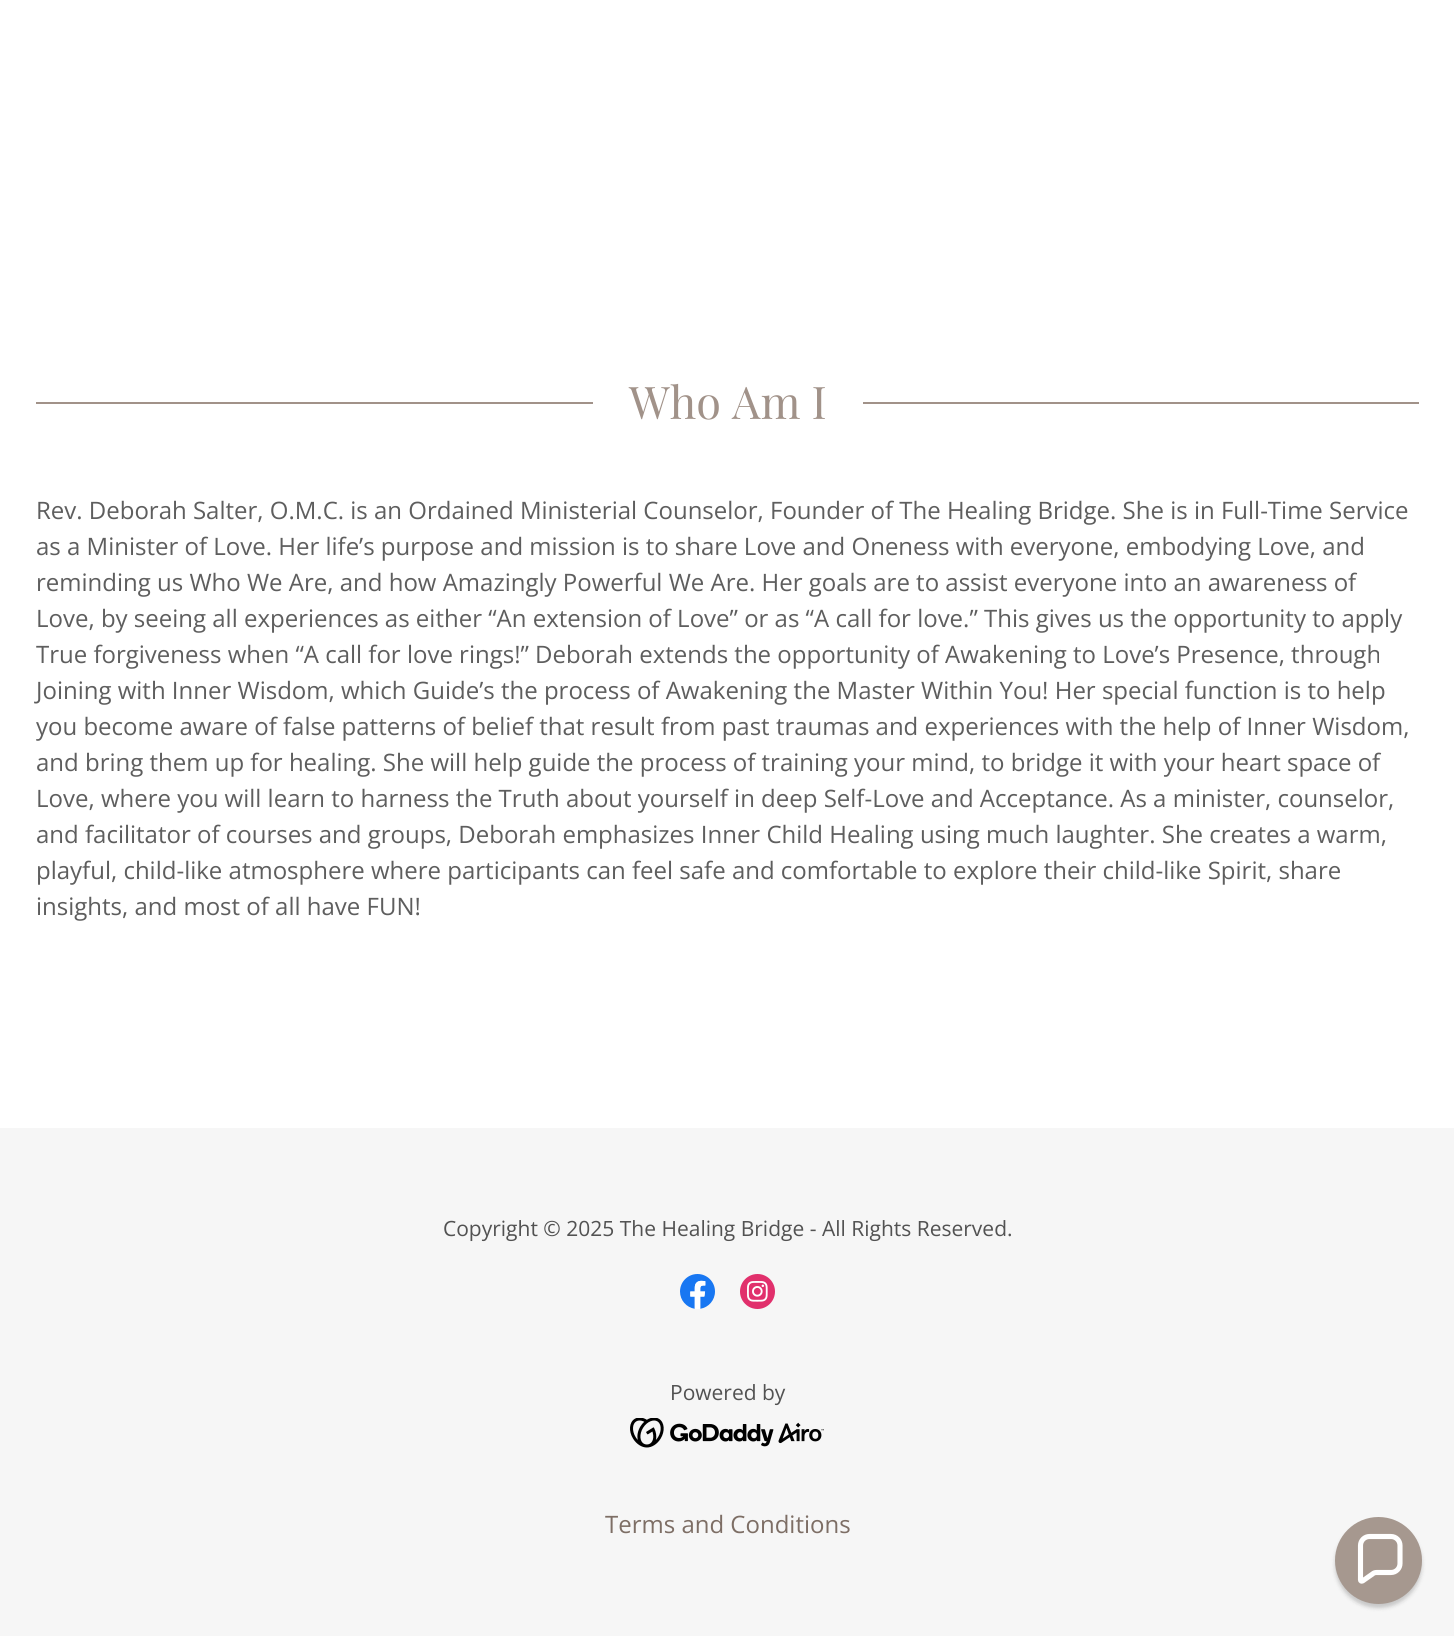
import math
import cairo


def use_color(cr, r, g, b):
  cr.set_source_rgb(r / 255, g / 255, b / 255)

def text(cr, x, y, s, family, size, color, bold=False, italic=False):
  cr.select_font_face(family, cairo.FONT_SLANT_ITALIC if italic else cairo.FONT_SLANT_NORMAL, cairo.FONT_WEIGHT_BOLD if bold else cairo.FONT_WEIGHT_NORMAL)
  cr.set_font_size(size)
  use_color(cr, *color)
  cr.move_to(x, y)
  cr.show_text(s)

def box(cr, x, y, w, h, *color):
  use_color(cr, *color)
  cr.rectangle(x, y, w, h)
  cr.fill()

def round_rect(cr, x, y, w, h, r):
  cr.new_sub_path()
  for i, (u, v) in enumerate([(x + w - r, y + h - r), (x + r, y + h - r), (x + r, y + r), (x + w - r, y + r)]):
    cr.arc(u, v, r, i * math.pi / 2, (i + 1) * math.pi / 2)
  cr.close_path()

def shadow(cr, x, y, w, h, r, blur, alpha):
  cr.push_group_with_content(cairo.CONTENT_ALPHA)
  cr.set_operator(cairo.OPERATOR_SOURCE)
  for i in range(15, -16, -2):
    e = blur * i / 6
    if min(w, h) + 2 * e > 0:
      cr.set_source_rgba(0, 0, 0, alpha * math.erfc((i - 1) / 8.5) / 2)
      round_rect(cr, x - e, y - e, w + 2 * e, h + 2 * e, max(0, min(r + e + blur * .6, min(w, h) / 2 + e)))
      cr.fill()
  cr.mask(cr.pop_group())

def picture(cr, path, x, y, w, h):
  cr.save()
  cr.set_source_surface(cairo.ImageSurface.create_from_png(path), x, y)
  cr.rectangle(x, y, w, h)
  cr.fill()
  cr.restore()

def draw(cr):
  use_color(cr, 246, 246, 246)
  cr.paint()
  box(cr, 0, 0, 1454, 1128, 255, 255, 255)
  box(cr, 36, 402, 557, 2, 161, 146, 137)
  box(cr, 863, 402, 556, 2, 161, 146, 137)
  picture(cr, "img_01.png", 680, 1274, 35, 35)
  picture(cr, "img_02.png", 740, 1274, 35, 35)
  picture(cr, "img_03.png", 630, 1418, 194, 30)
  use_color(cr, 12, 12, 12)
  shadow(cr, 1335, 1521, 87, 87, 43.5, 2, 0.2)
  use_color(cr, 166, 152, 143)
  cr.arc(1378.5, 1560.5, 43.5, 0, 2 * math.pi)
  cr.fill()
  cr.new_path()
  cr.move_to(1391, 1536.5)
  cr.line_to(1369.5, 1536.5)
  cr.curve_to(1364.5, 1536.5, 1360.5, 1540.5, 1360.5, 1545.5)
  cr.line_to(1360.5, 1580)
  cr.curve_to(1360.5, 1581, 1361.5, 1581.5, 1362.5, 1581)
  cr.line_to(1372.5, 1574)
  cr.curve_to(1373.5, 1573, 1375, 1572.5, 1376.5, 1572.5)
  cr.line_to(1391, 1572.5)
  cr.curve_to(1396, 1572.5, 1400, 1568.5, 1400, 1563.5)
  cr.line_to(1400, 1545.5)
  cr.curve_to(1400, 1540.5, 1396, 1536.5, 1391, 1536.5)
  cr.close_path()
  use_color(cr, 255, 255, 255)
  cr.set_line_width(5.1)
  cr.stroke()
  text(cr, 629, 419, "Who Am I", "Playfair Display", 45, (161, 146, 137))
  text(cr, 36, 519, "Rev. Deborah Salter, O.M.C. is an Ordained Ministerial Counselor, Founder of The Healing Bridge. She is in Full-Time Service", "Open Sans", 24, (94, 94, 94))
  text(cr, 36, 555, "as a Minister of Love. Her life’s purpose and mission is to share Love and Oneness with everyone, embodying Love, and", "Open Sans", 24, (94, 94, 94))
  text(cr, 36, 591, "reminding us Who We Are, and how Amazingly Powerful We Are. Her goals are to assist everyone into an awareness of", "Open Sans", 24, (94, 94, 94))
  text(cr, 36, 627, "Love, by seeing all experiences as either “An extension of Love” or as “A call for love.” This gives us the opportunity to apply", "Open Sans", 24, (94, 94, 94))
  text(cr, 36, 663, "True forgiveness when “A call for love rings!” Deborah extends the opportunity of Awakening to Love’s Presence, through", "Open Sans", 24, (94, 94, 94))
  text(cr, 36, 699, "Joining with Inner Wisdom, which Guide’s the process of Awakening the Master Within You! Her special function is to help", "Open Sans", 24, (94, 94, 94))
  text(cr, 36, 735, "you become aware of false patterns of belief that result from past traumas and experiences with the help of Inner Wisdom,", "Open Sans", 24, (94, 94, 94))
  text(cr, 36, 771, "and bring them up for healing. She will help guide the process of training your mind, to bridge it with your heart space of", "Open Sans", 24, (94, 94, 94))
  text(cr, 36, 807, "Love, where you will learn to harness the Truth about yourself in deep Self-Love and Acceptance. As a minister, counselor,", "Open Sans", 24, (94, 94, 94))
  text(cr, 36, 843, "and facilitator of courses and groups, Deborah emphasizes Inner Child Healing using much laughter. She creates a warm,", "Open Sans", 24, (94, 94, 94))
  text(cr, 36, 879, "playful, child-like atmosphere where participants can feel safe and comfortable to explore their child-like Spirit, share", "Open Sans", 24, (94, 94, 94))
  text(cr, 36, 915, "insights, and most of all have FUN!", "Open Sans", 24, (94, 94, 94))
  text(cr, 443, 1236, "Copyright © 2025 The Healing Bridge - All Rights Reserved.", "Open Sans", 21, (82, 82, 82))
  text(cr, 670, 1400, "Powered by", "Open Sans", 21, (82, 82, 82))
  text(cr, 605, 1533, "Terms and Conditions", "Open Sans", 24, (125, 110, 101))


surface = cairo.ImageSurface(cairo.FORMAT_RGB24, 1454, 1636)
cr = cairo.Context(surface)
options = cairo.FontOptions()
options.set_hint_metrics(cairo.HINT_METRICS_OFF)
options.set_hint_style(cairo.HINT_STYLE_NONE)
cr.set_font_options(options)
cr.set_miter_limit(4)
draw(cr)
surface.write_to_png("out.png")
